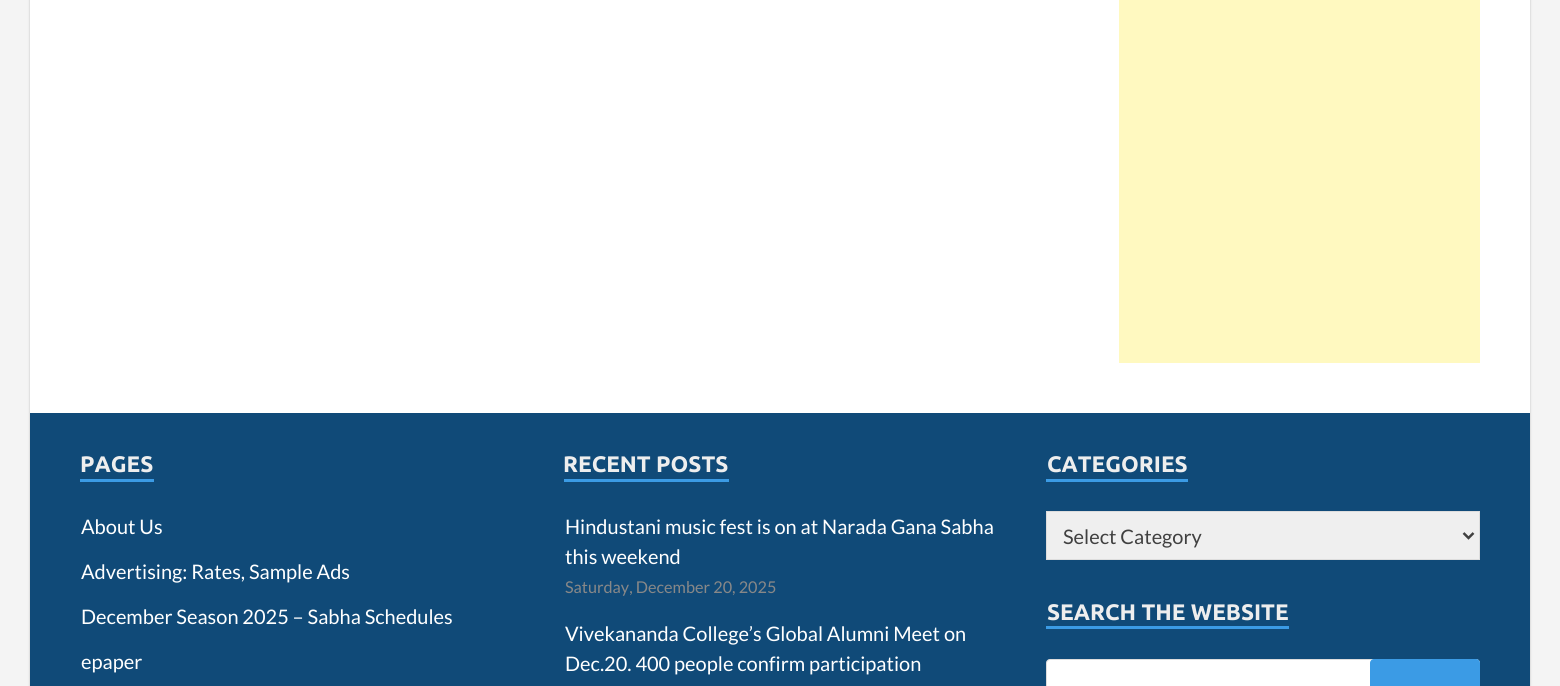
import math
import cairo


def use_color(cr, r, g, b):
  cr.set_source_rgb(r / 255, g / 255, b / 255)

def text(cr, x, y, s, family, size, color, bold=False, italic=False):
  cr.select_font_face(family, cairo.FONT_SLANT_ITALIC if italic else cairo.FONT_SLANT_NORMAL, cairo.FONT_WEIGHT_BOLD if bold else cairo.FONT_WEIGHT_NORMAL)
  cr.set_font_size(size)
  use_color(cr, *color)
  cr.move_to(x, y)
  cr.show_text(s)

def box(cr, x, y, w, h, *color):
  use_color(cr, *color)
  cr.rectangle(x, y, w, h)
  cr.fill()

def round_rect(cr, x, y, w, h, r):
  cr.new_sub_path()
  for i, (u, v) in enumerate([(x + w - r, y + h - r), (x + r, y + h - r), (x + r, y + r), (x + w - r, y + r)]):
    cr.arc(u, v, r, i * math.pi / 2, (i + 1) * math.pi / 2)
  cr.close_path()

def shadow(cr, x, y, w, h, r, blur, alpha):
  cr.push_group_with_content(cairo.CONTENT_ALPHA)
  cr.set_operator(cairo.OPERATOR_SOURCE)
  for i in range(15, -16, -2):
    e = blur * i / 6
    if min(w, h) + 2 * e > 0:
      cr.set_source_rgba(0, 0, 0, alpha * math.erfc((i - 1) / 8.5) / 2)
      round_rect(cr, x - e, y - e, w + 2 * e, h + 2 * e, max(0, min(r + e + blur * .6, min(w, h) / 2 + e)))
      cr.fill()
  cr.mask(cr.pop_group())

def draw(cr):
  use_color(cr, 244, 244, 244)
  cr.paint()
  use_color(cr, 187, 187, 187)
  shadow(cr, 30, -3, 1500, 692, 0, 1, 1)
  box(cr, 30, 0, 1500, 413, 255, 255, 255)
  box(cr, 1119, 0, 361, 363, 255, 249, 192)
  box(cr, 30, 413, 1500, 273, 16, 74, 120)
  box(cr, 80, 479, 74, 3, 59, 155, 229)
  box(cr, 564, 479, 165, 3, 59, 155, 229)
  box(cr, 1046, 479, 142, 3, 59, 155, 229)
  use_color(cr, 239, 239, 239)
  cr.rectangle(1046.5, 511.5, 433, 48)
  cr.fill_preserve()
  use_color(cr, 221, 221, 221)
  cr.set_line_width(1)
  cr.stroke()
  cr.new_path()
  cr.move_to(1463.5, 533)
  cr.line_to(1468.5, 538)
  cr.line_to(1473.5, 533)
  use_color(cr, 64, 64, 64)
  cr.set_line_width(2.5)
  cr.stroke()
  box(cr, 1046, 626, 243, 3, 59, 155, 229)
  use_color(cr, 255, 255, 255)
  round_rect(cr, 1046.5, 659.5, 433, 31, 3.5)
  cr.fill_preserve()
  use_color(cr, 221, 221, 221)
  cr.set_line_width(1)
  cr.stroke()
  use_color(cr, 59, 155, 229)
  round_rect(cr, 1370, 659, 110, 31, 4)
  cr.fill()
  text(cr, 80, 472, "PAGES", "Ubuntu", 22.5, (238, 238, 238), bold=True)
  text(cr, 81, 534, "About Us", "Lato", 20, (255, 255, 255))
  text(cr, 81, 579, "Advertising: Rates, Sample Ads", "Lato", 20, (255, 255, 255))
  text(cr, 81, 624, "December Season 2025 – Sabha Schedules", "Lato", 20, (255, 255, 255))
  text(cr, 81, 669, "epaper", "Lato", 20, (255, 255, 255))
  text(cr, 563, 472, "RECENT POSTS", "Ubuntu", 22.5, (238, 238, 238), bold=True)
  text(cr, 565, 534, "Hindustani music fest is on at Narada Gana Sabha", "Lato", 20, (255, 255, 255))
  text(cr, 565, 564, "this weekend", "Lato", 20, (255, 255, 255))
  text(cr, 565, 593, "Saturday, December 20, 2025", "Lato", 16.25, (136, 136, 136))
  text(cr, 565, 641, "Vivekananda College’s Global Alumni Meet on", "Lato", 20, (255, 255, 255))
  text(cr, 565, 671, "Dec.20. 400 people confirm participation", "Lato", 20, (255, 255, 255))
  text(cr, 1047, 472, "CATEGORIES", "Ubuntu", 22.5, (238, 238, 238), bold=True)
  text(cr, 1063, 544, "Select Category", "Lato", 20, (64, 64, 64))
  text(cr, 1047, 620, "SEARCH THE WEBSITE", "Ubuntu", 22.5, (238, 238, 238), bold=True)


surface = cairo.ImageSurface(cairo.FORMAT_RGB24, 1560, 686)
cr = cairo.Context(surface)
options = cairo.FontOptions()
options.set_hint_metrics(cairo.HINT_METRICS_OFF)
options.set_hint_style(cairo.HINT_STYLE_NONE)
cr.set_font_options(options)
cr.set_miter_limit(4)
draw(cr)
surface.write_to_png("out.png")
